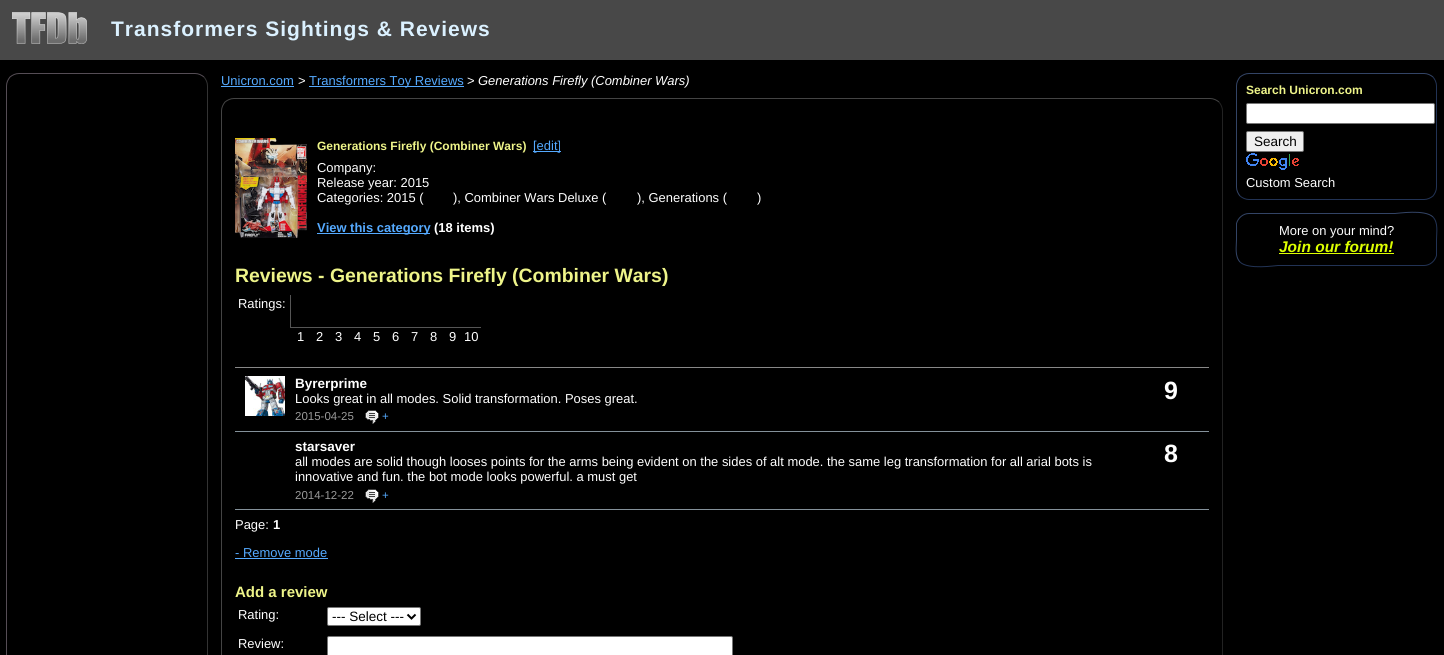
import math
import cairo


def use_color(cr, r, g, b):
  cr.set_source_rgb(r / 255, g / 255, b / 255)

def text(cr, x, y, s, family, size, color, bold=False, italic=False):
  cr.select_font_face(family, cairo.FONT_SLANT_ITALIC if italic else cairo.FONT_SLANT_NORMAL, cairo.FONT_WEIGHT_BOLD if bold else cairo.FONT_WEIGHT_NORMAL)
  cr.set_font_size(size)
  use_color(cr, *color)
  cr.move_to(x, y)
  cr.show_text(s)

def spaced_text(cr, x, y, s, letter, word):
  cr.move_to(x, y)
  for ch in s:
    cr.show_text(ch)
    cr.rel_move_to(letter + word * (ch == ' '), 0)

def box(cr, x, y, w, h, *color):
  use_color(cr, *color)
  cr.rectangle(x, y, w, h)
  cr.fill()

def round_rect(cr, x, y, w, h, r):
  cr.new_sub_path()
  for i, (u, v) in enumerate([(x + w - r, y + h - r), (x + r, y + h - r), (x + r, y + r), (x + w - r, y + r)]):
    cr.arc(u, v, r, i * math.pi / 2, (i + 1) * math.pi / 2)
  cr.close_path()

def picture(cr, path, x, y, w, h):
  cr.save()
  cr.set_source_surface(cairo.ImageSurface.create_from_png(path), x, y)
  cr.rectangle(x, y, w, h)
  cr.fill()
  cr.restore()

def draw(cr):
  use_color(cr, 0, 0, 0)
  cr.paint()
  box(cr, 0, 0, 1444, 60, 72, 72, 72)
  picture(cr, "img_01.png", 12, 12, 75, 32)
  cr.new_path()
  cr.move_to(204, 77)
  cr.curve_to(206, 79.5, 207.5, 82.5, 207.5, 86)
  cr.line_to(207.5, 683)
  cr.curve_to(207.5, 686.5, 206, 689.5, 204, 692)
  cr.curve_to(201.5, 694, 198.5, 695.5, 195, 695.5)
  cr.line_to(19, 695.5)
  cr.curve_to(15.5, 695.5, 12.5, 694, 10, 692)
  use_color(cr, 51, 51, 51)
  cr.set_line_width(1)
  cr.stroke()
  cr.new_path()
  cr.move_to(10, 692)
  cr.curve_to(8, 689.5, 6.5, 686.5, 6.5, 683)
  cr.line_to(6.5, 86)
  cr.curve_to(6.5, 82.5, 8, 79.5, 10, 77)
  cr.curve_to(12.5, 75, 15.5, 73.5, 19, 73.5)
  cr.line_to(195, 73.5)
  cr.curve_to(198.5, 73.5, 201.5, 75, 204, 77)
  use_color(cr, 85, 77, 85)
  cr.stroke()
  box(cr, 221, 86, 73, 1, 85, 170, 255)
  box(cr, 309, 86, 155, 1, 85, 170, 255)
  cr.new_path()
  cr.move_to(1219, 102)
  cr.curve_to(1221, 104.5, 1222.5, 107.5, 1222.5, 111)
  cr.line_to(1222.5, 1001)
  cr.curve_to(1222.5, 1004.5, 1221, 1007.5, 1219, 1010)
  cr.curve_to(1216.5, 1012, 1213.5, 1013.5, 1210, 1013.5)
  cr.line_to(234, 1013.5)
  cr.curve_to(230.5, 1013.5, 227.5, 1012, 225, 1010)
  use_color(cr, 34, 34, 34)
  cr.stroke()
  cr.new_path()
  cr.move_to(225, 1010)
  cr.curve_to(223, 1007.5, 221.5, 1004.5, 221.5, 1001)
  cr.line_to(221.5, 111)
  cr.curve_to(221.5, 107.5, 223, 104.5, 225, 102)
  cr.curve_to(227.5, 100, 230.5, 98.5, 234, 98.5)
  cr.line_to(1210, 98.5)
  cr.curve_to(1213.5, 98.5, 1216.5, 100, 1219, 102)
  use_color(cr, 68, 68, 68)
  cr.stroke()
  picture(cr, "img_02.png", 235, 138, 72, 100)
  box(cr, 533, 151, 28, 1, 85, 170, 255)
  box(cr, 317, 233, 113, 1, 85, 170, 255)
  box(cr, 290, 327, 191, 1, 85, 85, 85)
  box(cr, 290, 295, 1, 33, 85, 85, 85)
  box(cr, 235, 367, 974, 1, 136, 136, 136)
  box(cr, 235, 431, 974, 1, 132, 145, 154)
  picture(cr, "img_03.png", 245, 376, 40, 40)
  picture(cr, "img_04.png", 365, 410, 14, 14)
  box(cr, 235, 509, 974, 1, 132, 145, 154)
  picture(cr, "img_04.png", 365, 489, 14, 14)
  box(cr, 235, 558, 93, 1, 85, 170, 255)
  use_color(cr, 255, 255, 255)
  round_rect(cr, 327.5, 607.5, 93, 18, 1.5)
  cr.fill_preserve()
  use_color(cr, 118, 118, 118)
  cr.stroke()
  cr.new_path()
  cr.move_to(407.5, 614.5)
  cr.line_to(411.5, 618.5)
  cr.line_to(415.5, 614.5)
  use_color(cr, 0, 0, 0)
  cr.set_line_width(2)
  cr.stroke()
  use_color(cr, 255, 255, 255)
  round_rect(cr, 327.5, 636.5, 405, 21, 1.5)
  cr.fill_preserve()
  use_color(cr, 118, 118, 118)
  cr.set_line_width(1)
  cr.stroke()
  cr.new_path()
  cr.move_to(1433, 77)
  cr.curve_to(1435, 79.5, 1436.5, 82.5, 1436.5, 86)
  cr.line_to(1436.5, 187)
  cr.curve_to(1436.5, 190.5, 1435, 193.5, 1433, 196)
  cr.curve_to(1430.5, 198, 1427.5, 199.5, 1424, 199.5)
  cr.line_to(1249, 199.5)
  cr.curve_to(1245.5, 199.5, 1242.5, 198, 1240, 196)
  use_color(cr, 34, 51, 85)
  cr.stroke()
  cr.new_path()
  cr.move_to(1240, 196)
  cr.curve_to(1238, 193.5, 1236.5, 190.5, 1236.5, 187)
  cr.line_to(1236.5, 86)
  cr.curve_to(1236.5, 82.5, 1238, 79.5, 1240, 77)
  cr.curve_to(1242.5, 75, 1245.5, 73.5, 1249, 73.5)
  cr.line_to(1424, 73.5)
  cr.curve_to(1427.5, 73.5, 1430.5, 75, 1433, 77)
  use_color(cr, 51, 68, 102)
  cr.stroke()
  use_color(cr, 255, 255, 255)
  round_rect(cr, 1246.5, 103.5, 188, 20, 1.5)
  cr.fill_preserve()
  use_color(cr, 118, 118, 118)
  cr.stroke()
  use_color(cr, 239, 239, 239)
  round_rect(cr, 1246.5, 131.5, 57, 20, 1.5)
  cr.fill_preserve()
  use_color(cr, 118, 118, 118)
  cr.stroke()
  picture(cr, "img_05.png", 1246, 153, 53, 17)
  cr.new_path()
  cr.move_to(1433, 217)
  cr.curve_to(1438.5, 223, 1436.5, 232.5, 1436.5, 239.5)
  cr.line_to(1436.5, 255.5)
  cr.curve_to(1435, 261, 1430, 265.5, 1424, 265.5)
  cr.line_to(1278, 265.5)
  cr.curve_to(1275.5, 265.5, 1248, 270, 1240, 262)
  use_color(cr, 34, 51, 85)
  cr.stroke()
  cr.new_path()
  cr.move_to(1240, 262)
  cr.curve_to(1234.5, 256, 1236.5, 246.5, 1236.5, 239.5)
  cr.line_to(1236.5, 223.5)
  cr.curve_to(1238, 218, 1243, 213.5, 1249, 213.5)
  cr.line_to(1395, 213.5)
  cr.curve_to(1397.5, 213.5, 1425, 209, 1433, 217)
  use_color(cr, 51, 68, 102)
  cr.stroke()
  box(cr, 1279, 253, 115, 1, 221, 255, 0)
  cr.select_font_face("Liberation Sans", cairo.FONT_SLANT_NORMAL, cairo.FONT_WEIGHT_BOLD)
  cr.set_font_size(21)
  use_color(cr, 219, 241, 255)
  spaced_text(cr, 111, 36, "Transformers Sightings & Reviews", 1, 0)
  text(cr, 221, 85, "Unicron.com", "Liberation Sans", 12.95, (85, 170, 255))
  text(cr, 298, 85, ">", "Liberation Sans", 12.95, (255, 255, 255))
  text(cr, 309, 85, "Transformers Toy Reviews", "Liberation Sans", 12.95, (85, 170, 255))
  text(cr, 467, 85, ">", "Liberation Sans", 12.95, (255, 255, 255))
  text(cr, 478, 85, "Generations Firefly (Combiner Wars)", "Liberation Sans", 12.95, (255, 255, 255), italic=True)
  text(cr, 317, 150, "Generations Firefly (Combiner Wars)", "Liberation Sans", 12, (238, 244, 137), bold=True)
  text(cr, 533, 150, "[edit]", "Liberation Sans", 12.95, (85, 170, 255))
  text(cr, 317, 172, "Company:", "Liberation Sans", 12.95, (255, 255, 255))
  text(cr, 317, 187, "Release year: 2015", "Liberation Sans", 12.95, (255, 255, 255))
  text(cr, 317, 202, "Categories: 2015 (", "Liberation Sans", 12.95, (255, 255, 255))
  text(cr, 453, 202, "), Combiner Wars Deluxe (", "Liberation Sans", 12.95, (255, 255, 255))
  text(cr, 637, 202, "), Generations (", "Liberation Sans", 12.95, (255, 255, 255))
  text(cr, 757, 202, ")", "Liberation Sans", 12.95, (255, 255, 255))
  text(cr, 317, 232, "View this category", "Liberation Sans", 12.95, (85, 170, 255), bold=True)
  text(cr, 434, 232, "(18 items)", "Liberation Sans", 12.95, (255, 255, 255), bold=True)
  text(cr, 235, 282, "Reviews - Generations Firefly (Combiner Wars)", "Liberation Sans", 19.4, (238, 244, 137), bold=True)
  text(cr, 238, 308, "Ratings:", "Liberation Sans", 12.95, (255, 255, 255))
  text(cr, 297, 341, "1", "Liberation Sans", 12.95, (255, 255, 255))
  text(cr, 316, 341, "2", "Liberation Sans", 12.95, (255, 255, 255))
  text(cr, 335, 341, "3", "Liberation Sans", 12.95, (255, 255, 255))
  text(cr, 354, 341, "4", "Liberation Sans", 12.95, (255, 255, 255))
  text(cr, 373, 341, "5", "Liberation Sans", 12.95, (255, 255, 255))
  text(cr, 392, 341, "6", "Liberation Sans", 12.95, (255, 255, 255))
  text(cr, 411, 341, "7", "Liberation Sans", 12.95, (255, 255, 255))
  text(cr, 430, 341, "8", "Liberation Sans", 12.95, (255, 255, 255))
  text(cr, 449, 341, "9", "Liberation Sans", 12.95, (255, 255, 255))
  text(cr, 464, 341, "10", "Liberation Sans", 12.95, (255, 255, 255))
  text(cr, 295, 388, "Byrerprime", "Liberation Sans", 13.5, (255, 255, 255), bold=True)
  text(cr, 295, 403, "Looks great in all modes. Solid transformation. Poses great.", "Liberation Sans", 12.95, (255, 255, 255))
  text(cr, 295, 420, "2015-04-25", "Liberation Sans", 11.5, (153, 153, 153))
  text(cr, 382, 420, "+", "Liberation Sans", 11.5, (85, 170, 255))
  text(cr, 1164, 399, "9", "Liberation Sans", 25, (255, 255, 255), bold=True)
  text(cr, 295, 451, "starsaver", "Liberation Sans", 13.5, (255, 255, 255), bold=True)
  text(cr, 295, 466, "all modes are solid though looses points for the arms being evident on the sides of alt mode. the same leg transformation for all arial bots is", "Liberation Sans", 12.95, (255, 255, 255))
  text(cr, 295, 481, "innovative and fun. the bot mode looks powerful. a must get", "Liberation Sans", 12.95, (255, 255, 255))
  text(cr, 295, 499, "2014-12-22", "Liberation Sans", 11.5, (153, 153, 153))
  text(cr, 382, 499, "+", "Liberation Sans", 11.5, (85, 170, 255))
  text(cr, 1164, 462, "8", "Liberation Sans", 25, (255, 255, 255), bold=True)
  text(cr, 235, 529, "Page:", "Liberation Sans", 12.95, (255, 255, 255))
  text(cr, 273, 529, "1", "Liberation Sans", 12.95, (255, 255, 255), bold=True)
  text(cr, 235, 557, "- Remove mode", "Liberation Sans", 12.95, (85, 170, 255))
  text(cr, 235, 597, "Add a review", "Liberation Sans", 15, (238, 244, 137), bold=True)
  text(cr, 238, 619, "Rating:", "Liberation Sans", 12.95, (255, 255, 255))
  text(cr, 332, 621, "--- Select ---", "Liberation Sans", 13.5, (0, 0, 0))
  text(cr, 238, 648, "Review:", "Liberation Sans", 12.95, (255, 255, 255))
  text(cr, 1246, 94, "Search Unicron.com", "Liberation Sans", 12, (238, 244, 137), bold=True)
  text(cr, 1254, 146, "Search", "Liberation Sans", 13.5, (0, 0, 0))
  text(cr, 1246, 187, "Custom Search", "Liberation Sans", 12.95, (255, 255, 255))
  text(cr, 1279, 235, "More on your mind?", "Liberation Sans", 12.95, (255, 255, 255))
  text(cr, 1279, 252, "Join our forum!", "Liberation Sans", 15.5, (221, 255, 0), bold=True, italic=True)


surface = cairo.ImageSurface(cairo.FORMAT_RGB24, 1444, 655)
cr = cairo.Context(surface)
options = cairo.FontOptions()
options.set_hint_metrics(cairo.HINT_METRICS_OFF)
options.set_hint_style(cairo.HINT_STYLE_NONE)
cr.set_font_options(options)
cr.set_miter_limit(4)
draw(cr)
surface.write_to_png("out.png")
